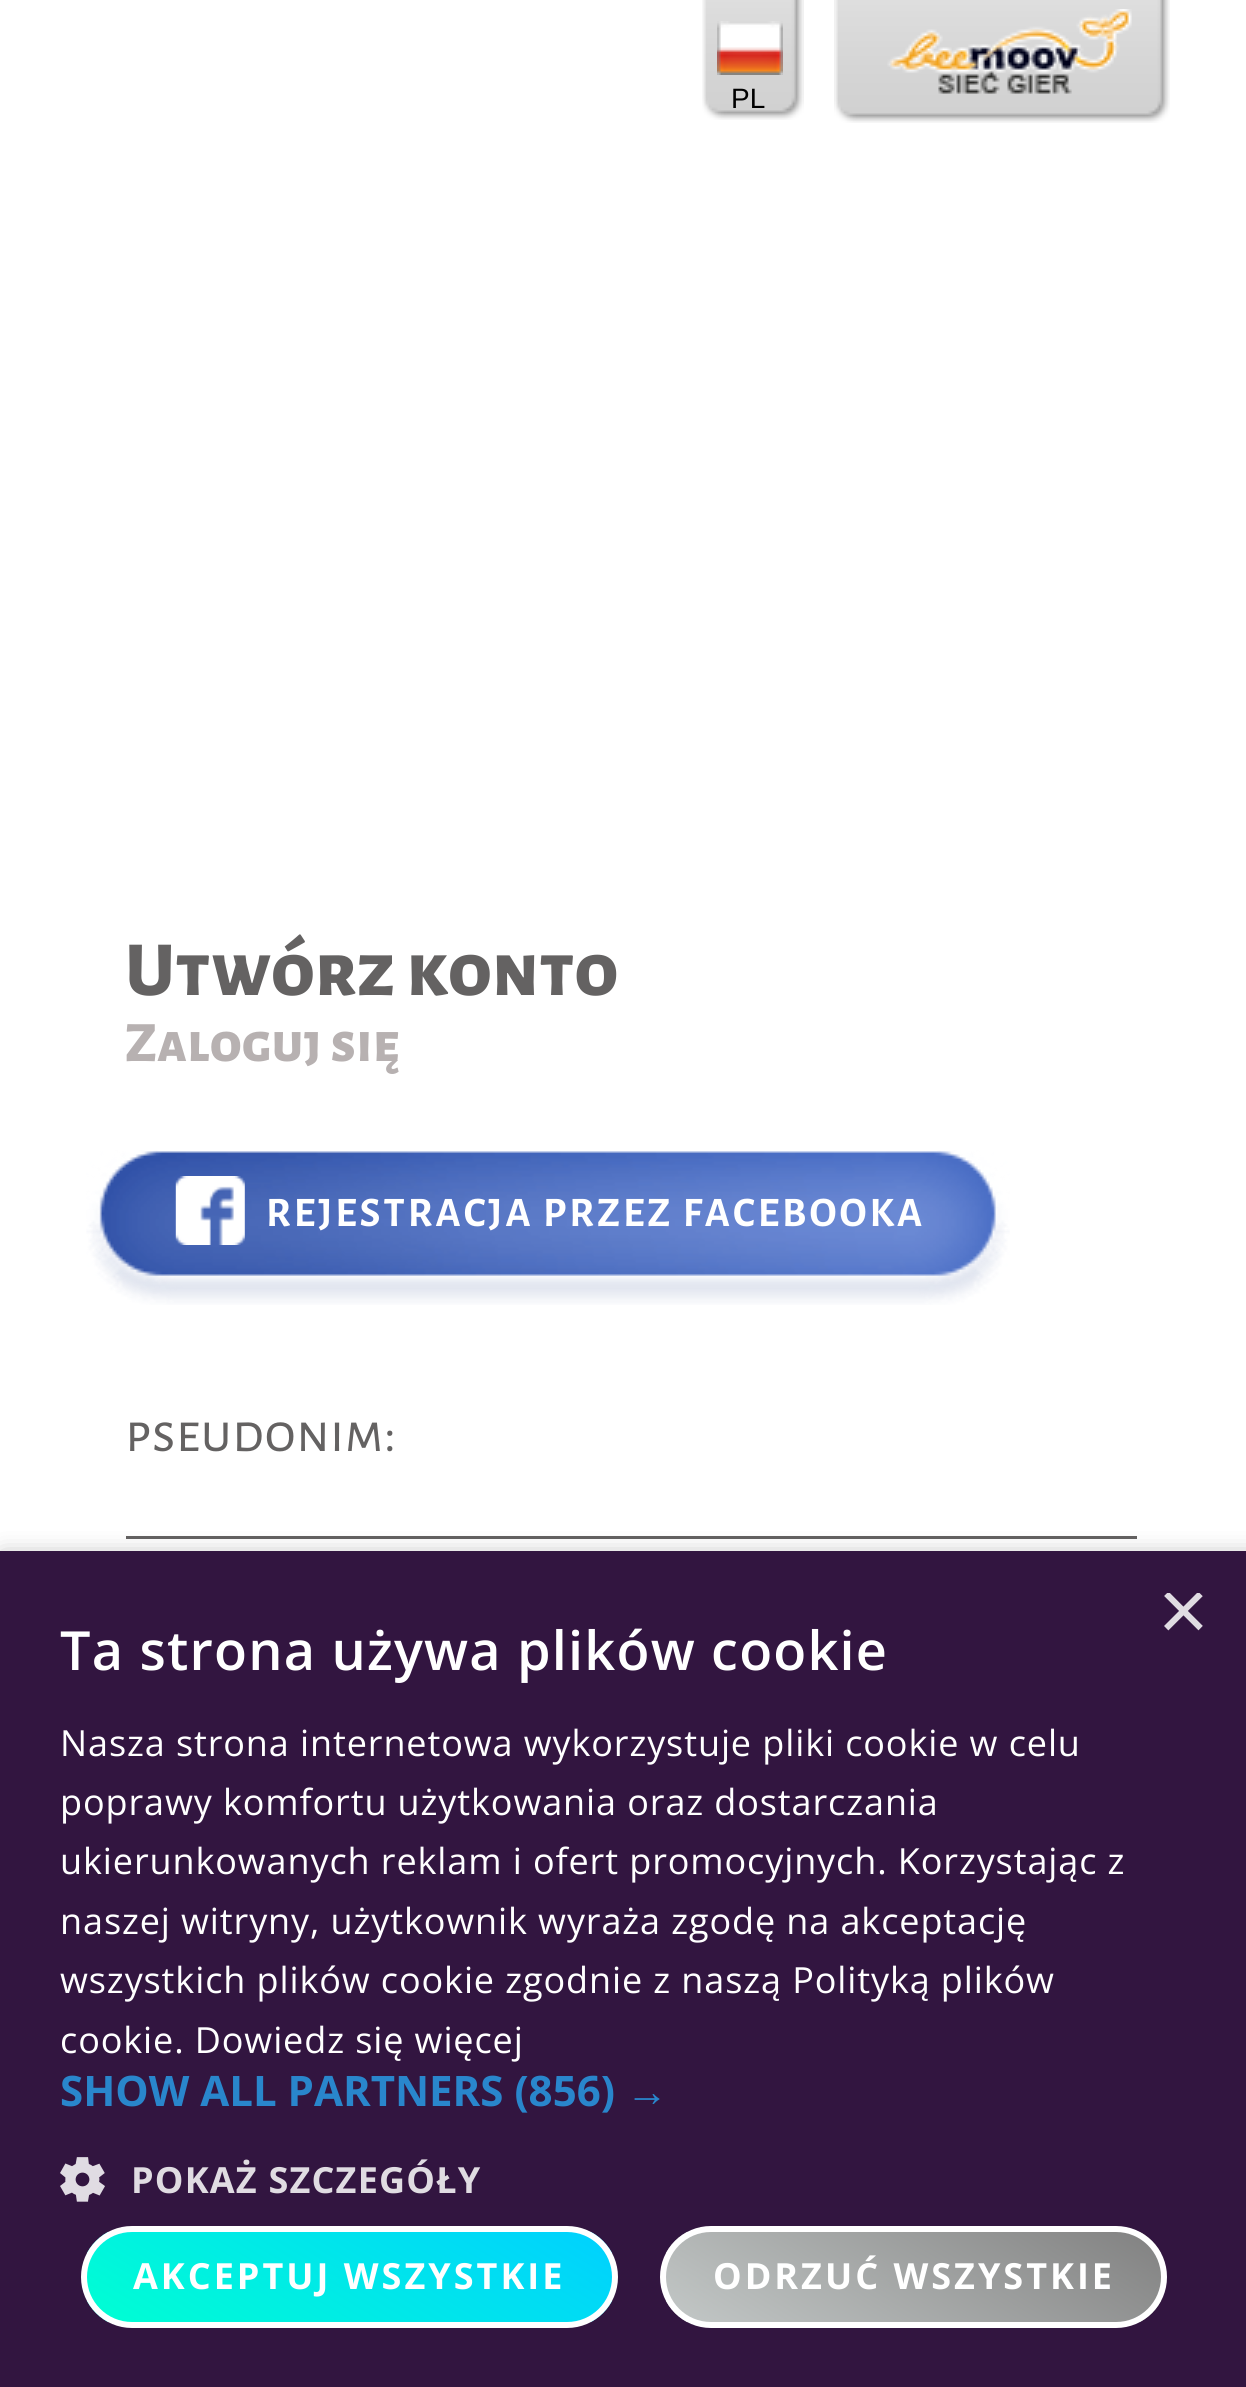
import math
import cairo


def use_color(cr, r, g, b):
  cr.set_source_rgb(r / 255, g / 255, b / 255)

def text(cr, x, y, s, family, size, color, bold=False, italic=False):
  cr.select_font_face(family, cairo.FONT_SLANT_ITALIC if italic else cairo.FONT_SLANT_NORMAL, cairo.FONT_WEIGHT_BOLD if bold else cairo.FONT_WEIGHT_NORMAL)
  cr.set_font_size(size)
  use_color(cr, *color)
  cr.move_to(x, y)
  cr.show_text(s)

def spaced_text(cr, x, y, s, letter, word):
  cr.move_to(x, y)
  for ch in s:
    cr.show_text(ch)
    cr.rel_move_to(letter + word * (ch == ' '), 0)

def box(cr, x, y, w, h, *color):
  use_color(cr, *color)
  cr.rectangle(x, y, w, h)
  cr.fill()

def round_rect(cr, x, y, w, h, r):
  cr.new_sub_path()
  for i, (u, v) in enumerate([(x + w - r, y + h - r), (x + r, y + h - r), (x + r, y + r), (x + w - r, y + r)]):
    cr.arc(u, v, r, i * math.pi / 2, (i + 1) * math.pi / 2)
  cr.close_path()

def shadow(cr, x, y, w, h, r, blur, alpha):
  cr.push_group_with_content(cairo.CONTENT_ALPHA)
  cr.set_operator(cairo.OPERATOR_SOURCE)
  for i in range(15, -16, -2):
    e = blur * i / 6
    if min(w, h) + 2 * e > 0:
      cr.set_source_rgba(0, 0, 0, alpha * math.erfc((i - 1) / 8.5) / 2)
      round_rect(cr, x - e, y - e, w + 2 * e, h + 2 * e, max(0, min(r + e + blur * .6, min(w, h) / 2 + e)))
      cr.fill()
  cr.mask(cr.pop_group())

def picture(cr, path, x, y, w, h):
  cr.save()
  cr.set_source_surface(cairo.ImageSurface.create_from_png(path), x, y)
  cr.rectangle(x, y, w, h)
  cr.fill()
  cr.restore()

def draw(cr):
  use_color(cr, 255, 255, 255)
  cr.paint()
  picture(cr, "img_01.png", 702, 0, 102, 120)
  picture(cr, "img_02.png", 717, 21, 66, 54)
  picture(cr, "img_03.png", 834, 0, 336, 123)
  picture(cr, "img_04.png", 887, 9, 245, 85)
  picture(cr, "img_05.png", 86, 1150, 924, 155)
  picture(cr, "img_06.png", 175, 1176, 70, 69)
  box(cr, 126, 1536, 1011, 3, 100, 98, 98)
  use_color(cr, 0, 0, 0)
  shadow(cr, 3, 1557, 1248, 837, 0, 12, 0.35)
  box(cr, 0, 1551, 1246, 836, 50, 21, 64)
  picture(cr, "img_07.png", 60, 2157, 45, 45)
  cr.save()
  round_rect(cr, 81, 2226, 537, 102, 51)
  cr.clip()
  gradient = cairo.LinearGradient(439, 2128, 260, 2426)
  gradient.add_color_stop_rgba(0, 0, 0.816, 1, 1)
  gradient.add_color_stop_rgba(1, 0, 1, 0.827, 1)
  cr.set_source(gradient)
  cr.rectangle(87, 2232, 525, 90)
  cr.fill()
  cr.restore()
  round_rect(cr, 84, 2229, 531, 96, 48)
  use_color(cr, 255, 255, 255)
  cr.set_line_width(6)
  cr.stroke()
  cr.save()
  round_rect(cr, 660, 2226, 507, 102, 51)
  cr.clip()
  gradient = cairo.LinearGradient(999, 2135, 828, 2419)
  gradient.add_color_stop_rgba(0, 0.506, 0.506, 0.506, 1)
  gradient.add_color_stop_rgba(1, 0.765, 0.784, 0.78, 1)
  cr.set_source(gradient)
  cr.rectangle(666, 2232, 495, 90)
  cr.fill()
  cr.restore()
  round_rect(cr, 663, 2229, 501, 96, 48)
  cr.stroke()
  text(cr, 731, 108, "PL", "Liberation Sans", 28, (0, 0, 0))
  text(cr, 125, 995, "Utwórz konto", "Alegreya Sans SC ExtraBold", 78, (100, 98, 98))
  text(cr, 125, 1061, "Zaloguj się", "Alegreya Sans SC ExtraBold", 57, (183, 177, 177))
  cr.select_font_face("Alegreya Sans SC", cairo.FONT_SLANT_NORMAL, cairo.FONT_WEIGHT_BOLD)
  cr.set_font_size(42)
  use_color(cr, 255, 255, 255)
  spaced_text(cr, 266, 1226, "REJESTRACJA PRZEZ FACEBOOKA", 3, 0)
  text(cr, 125, 1451, "pseudonim:", "Alegreya Sans SC", 57, (100, 98, 98))
  cr.save()
  cr.rectangle(1158, 1593, 45, 45)
  cr.clip()
  text(cr, 1158, 1640, "×", "Liberation Sans", 87, (224, 220, 226))
  cr.restore()
  cr.select_font_face("Open Sans SemiBold")
  cr.set_font_size(54)
  use_color(cr, 255, 255, 255)
  spaced_text(cr, 60, 1670, "Ta strona używa plików cookie", 1.2, 0)
  cr.select_font_face("Open Sans")
  cr.set_font_size(36)
  spaced_text(cr, 60, 1756, "Nasza strona internetowa wykorzystuje pliki cookie w celu", 0.9, 0)
  spaced_text(cr, 60, 1815, "poprawy komfortu użytkowania oraz dostarczania", 0.9, 0)
  spaced_text(cr, 60, 1874, "ukierunkowanych reklam i ofert promocyjnych. Korzystając z", 0.9, 0)
  spaced_text(cr, 60, 1934, "naszej witryny, użytkownik wyraża zgodę na akceptację", 0.9, 0)
  spaced_text(cr, 60, 1993, "wszystkich plików cookie zgodnie z naszą Polityką plików", 0.9, 0)
  spaced_text(cr, 60, 2053, "cookie. Dowiedz się więcej", 0.9, 0)
  text(cr, 60, 2106, "SHOW ALL PARTNERS (856)", "Open Sans", 42, (41, 134, 204), bold=True)
  text(cr, 626, 2106, "→", "Liberation Sans", 42, (41, 134, 204), bold=True)
  cr.select_font_face("Open Sans", cairo.FONT_SLANT_NORMAL, cairo.FONT_WEIGHT_BOLD)
  cr.set_font_size(36)
  use_color(cr, 224, 220, 226)
  spaced_text(cr, 131, 2193, "POKAŻ SZCZEGÓŁY", 1.2, 0)
  use_color(cr, 255, 255, 255)
  spaced_text(cr, 133, 2289, "AKCEPTUJ WSZYSTKIE", 3, 0)
  spaced_text(cr, 713, 2289, "ODRZUĆ WSZYSTKIE", 3, 0)


surface = cairo.ImageSurface(cairo.FORMAT_RGB24, 1246, 2387)
cr = cairo.Context(surface)
options = cairo.FontOptions()
options.set_hint_metrics(cairo.HINT_METRICS_OFF)
options.set_hint_style(cairo.HINT_STYLE_NONE)
cr.set_font_options(options)
cr.set_miter_limit(4)
draw(cr)
surface.write_to_png("out.png")
